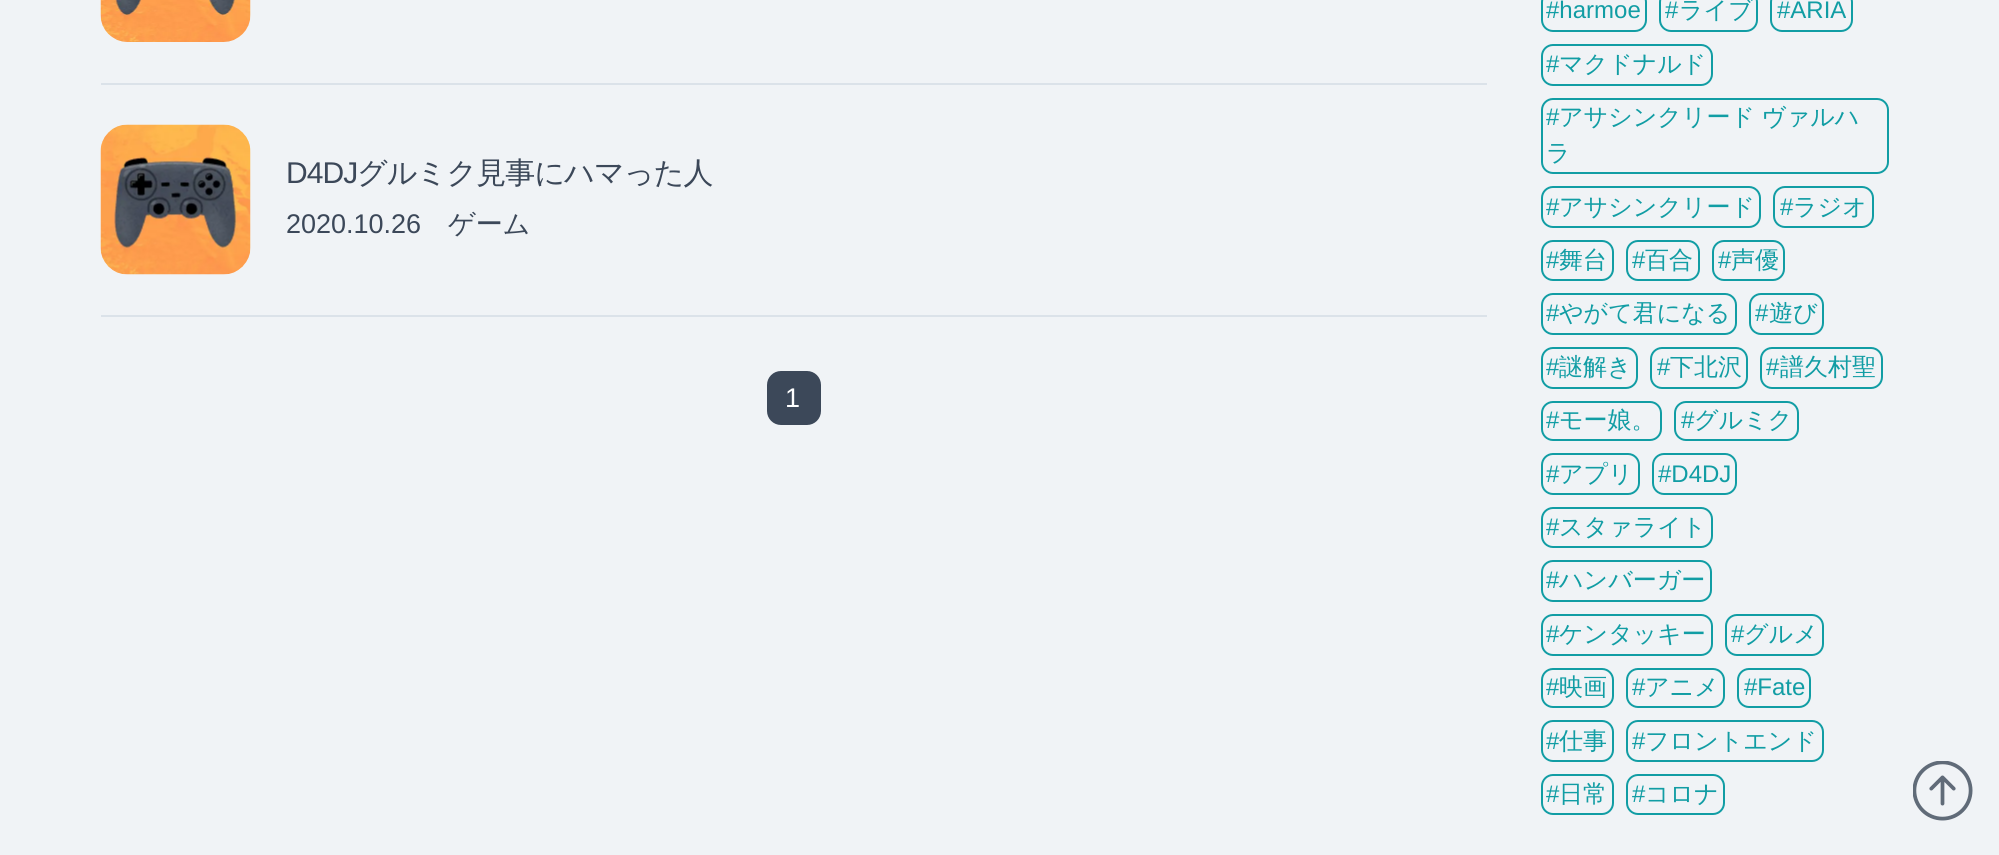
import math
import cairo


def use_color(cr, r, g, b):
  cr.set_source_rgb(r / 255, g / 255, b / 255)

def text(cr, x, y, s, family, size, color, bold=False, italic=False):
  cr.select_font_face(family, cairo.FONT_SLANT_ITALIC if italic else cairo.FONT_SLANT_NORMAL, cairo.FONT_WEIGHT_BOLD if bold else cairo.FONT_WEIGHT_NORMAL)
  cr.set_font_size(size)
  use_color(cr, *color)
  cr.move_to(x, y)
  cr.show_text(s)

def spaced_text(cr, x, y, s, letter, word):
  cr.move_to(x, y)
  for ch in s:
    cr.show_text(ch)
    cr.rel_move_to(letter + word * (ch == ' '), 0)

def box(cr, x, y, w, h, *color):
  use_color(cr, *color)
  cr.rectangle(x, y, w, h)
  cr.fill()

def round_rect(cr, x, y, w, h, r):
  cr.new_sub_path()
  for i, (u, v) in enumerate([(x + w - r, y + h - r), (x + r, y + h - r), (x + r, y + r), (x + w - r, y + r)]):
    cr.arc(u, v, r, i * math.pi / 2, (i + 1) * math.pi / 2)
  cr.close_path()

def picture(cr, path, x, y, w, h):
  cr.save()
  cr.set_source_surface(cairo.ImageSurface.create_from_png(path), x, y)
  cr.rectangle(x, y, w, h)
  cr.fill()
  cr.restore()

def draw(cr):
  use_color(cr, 240, 243, 246)
  cr.paint()
  box(cr, 101, 83, 1386, 2, 219, 226, 233)
  picture(cr, "img_01.png", 100, 0, 151, 42)
  box(cr, 101, 315, 1386, 2, 219, 226, 233)
  picture(cr, "img_02.png", 100, 124, 151, 151)
  use_color(cr, 60, 72, 89)
  round_rect(cr, 767, 371, 54, 54, 14)
  cr.fill()
  round_rect(cr, 1542, -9, 104, 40, 11)
  use_color(cr, 17, 157, 164)
  cr.stroke()
  round_rect(cr, 1660, -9, 97, 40, 11)
  cr.stroke()
  round_rect(cr, 1771, -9, 81, 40, 11)
  cr.stroke()
  round_rect(cr, 1542, 45, 170, 40, 11)
  cr.stroke()
  round_rect(cr, 1542, 99, 346, 74, 11)
  cr.stroke()
  round_rect(cr, 1542, 187, 218, 40, 11)
  cr.stroke()
  round_rect(cr, 1774, 187, 99, 40, 11)
  cr.stroke()
  round_rect(cr, 1542, 241, 71, 39, 11)
  cr.stroke()
  round_rect(cr, 1627, 241, 72, 39, 11)
  cr.stroke()
  round_rect(cr, 1713, 241, 71, 39, 11)
  cr.stroke()
  round_rect(cr, 1542, 294, 194, 40, 11)
  cr.stroke()
  round_rect(cr, 1750, 294, 73, 40, 11)
  cr.stroke()
  round_rect(cr, 1542, 348, 95, 40, 11)
  cr.stroke()
  round_rect(cr, 1651, 348, 96, 40, 11)
  cr.stroke()
  round_rect(cr, 1761, 348, 121, 40, 11)
  cr.stroke()
  round_rect(cr, 1542, 402, 119, 38, 11)
  cr.stroke()
  round_rect(cr, 1675, 402, 123, 38, 11)
  cr.stroke()
  round_rect(cr, 1542, 454, 97, 40, 11)
  cr.stroke()
  round_rect(cr, 1653, 454, 83, 40, 11)
  cr.stroke()
  round_rect(cr, 1542, 508, 170, 39, 11)
  cr.stroke()
  round_rect(cr, 1542, 561, 169, 40, 11)
  cr.stroke()
  round_rect(cr, 1542, 615, 170, 40, 11)
  cr.stroke()
  round_rect(cr, 1726, 615, 97, 40, 11)
  cr.stroke()
  round_rect(cr, 1542, 669, 71, 38, 11)
  cr.stroke()
  round_rect(cr, 1627, 669, 97, 38, 11)
  cr.stroke()
  round_rect(cr, 1738, 669, 72, 38, 11)
  cr.stroke()
  round_rect(cr, 1542, 721, 71, 40, 11)
  cr.stroke()
  round_rect(cr, 1627, 721, 196, 40, 11)
  cr.stroke()
  round_rect(cr, 1542, 775, 71, 39, 11)
  cr.stroke()
  round_rect(cr, 1627, 775, 97, 39, 11)
  cr.stroke()
  picture(cr, "img_03.png", 1913, 761, 60, 60)
  cr.select_font_face("Liberation Sans")
  cr.set_font_size(30)
  use_color(cr, 60, 72, 89)
  spaced_text(cr, 286, 183, "D4DJ", -0.9, 0)
  cr.select_font_face("WenQuanYi Zen Hei Medium")
  spaced_text(cr, 357, 183, "グルミク見事にハマった人", -0.9, 0)
  text(cr, 286, 233, "2020.10.26", "Liberation Sans", 27, (60, 72, 89))
  text(cr, 448, 233, "ゲーム", "WenQuanYi Zen Hei Medium", 27, (60, 72, 89))
  text(cr, 785, 407, "1", "Liberation Sans", 27, (255, 255, 255))
  text(cr, 1546, 18, "#harmoe", "Liberation Sans", 24, (17, 157, 164))
  text(cr, 1665, 18, "#", "Liberation Sans", 24, (17, 157, 164))
  text(cr, 1679, 18, "ライブ", "WenQuanYi Zen Hei Medium", 24, (17, 157, 164))
  text(cr, 1777, 18, "#ARIA", "Liberation Sans", 24, (17, 157, 164))
  text(cr, 1546, 72, "#", "Liberation Sans", 24, (17, 157, 164))
  text(cr, 1559, 72, "マクドナルド", "WenQuanYi Zen Hei Medium", 24, (17, 157, 164))
  text(cr, 1546, 125, "#", "Liberation Sans", 24, (17, 157, 164))
  cr.select_font_face("WenQuanYi Zen Hei Medium")
  spaced_text(cr, 1559, 125, "アサシンクリード ヴァルハ", 0, -1)
  text(cr, 1546, 161, "ラ", "WenQuanYi Zen Hei Medium", 24, (17, 157, 164))
  text(cr, 1546, 215, "#", "Liberation Sans", 24, (17, 157, 164))
  text(cr, 1559, 215, "アサシンクリード", "WenQuanYi Zen Hei Medium", 24, (17, 157, 164))
  text(cr, 1780, 215, "#", "Liberation Sans", 24, (17, 157, 164))
  text(cr, 1793, 215, "ラジオ", "WenQuanYi Zen Hei Medium", 24, (17, 157, 164))
  text(cr, 1546, 268, "#", "Liberation Sans", 24, (17, 157, 164))
  text(cr, 1559, 268, "舞台", "WenQuanYi Zen Hei Medium", 24, (17, 157, 164))
  text(cr, 1632, 268, "#", "Liberation Sans", 24, (17, 157, 164))
  text(cr, 1645, 268, "百合", "WenQuanYi Zen Hei Medium", 24, (17, 157, 164))
  text(cr, 1718, 268, "#", "Liberation Sans", 24, (17, 157, 164))
  text(cr, 1731, 268, "声優", "WenQuanYi Zen Hei Medium", 24, (17, 157, 164))
  text(cr, 1546, 321, "#", "Liberation Sans", 24, (17, 157, 164))
  text(cr, 1559, 321, "やがて君になる", "WenQuanYi Zen Hei Medium", 24, (17, 157, 164))
  text(cr, 1755, 321, "#", "Liberation Sans", 24, (17, 157, 164))
  text(cr, 1769, 321, "遊び", "WenQuanYi Zen Hei Medium", 24, (17, 157, 164))
  text(cr, 1546, 375, "#", "Liberation Sans", 24, (17, 157, 164))
  text(cr, 1559, 375, "謎解き", "WenQuanYi Zen Hei Medium", 24, (17, 157, 164))
  text(cr, 1657, 375, "#", "Liberation Sans", 24, (17, 157, 164))
  text(cr, 1670, 375, "下北沢", "WenQuanYi Zen Hei Medium", 24, (17, 157, 164))
  text(cr, 1766, 375, "#", "Liberation Sans", 24, (17, 157, 164))
  text(cr, 1780, 375, "譜久村聖", "WenQuanYi Zen Hei Medium", 24, (17, 157, 164))
  text(cr, 1546, 428, "#", "Liberation Sans", 24, (17, 157, 164))
  text(cr, 1559, 428, "モー娘。", "WenQuanYi Zen Hei Medium", 24, (17, 157, 164))
  text(cr, 1681, 428, "#", "Liberation Sans", 24, (17, 157, 164))
  text(cr, 1694, 428, "グルミク", "WenQuanYi Zen Hei Medium", 24, (17, 157, 164))
  text(cr, 1546, 482, "#", "Liberation Sans", 24, (17, 157, 164))
  text(cr, 1559, 482, "アプリ", "WenQuanYi Zen Hei Medium", 24, (17, 157, 164))
  text(cr, 1658, 482, "#D4DJ", "Liberation Sans", 24, (17, 157, 164))
  text(cr, 1546, 535, "#", "Liberation Sans", 24, (17, 157, 164))
  text(cr, 1559, 535, "スタァライト", "WenQuanYi Zen Hei Medium", 24, (17, 157, 164))
  text(cr, 1546, 588, "#", "Liberation Sans", 24, (17, 157, 164))
  text(cr, 1559, 588, "ハンバーガー", "WenQuanYi Zen Hei Medium", 24, (17, 157, 164))
  text(cr, 1546, 642, "#", "Liberation Sans", 24, (17, 157, 164))
  text(cr, 1559, 642, "ケンタッキー", "WenQuanYi Zen Hei Medium", 24, (17, 157, 164))
  text(cr, 1731, 642, "#", "Liberation Sans", 24, (17, 157, 164))
  text(cr, 1744, 642, "グルメ", "WenQuanYi Zen Hei Medium", 24, (17, 157, 164))
  text(cr, 1546, 695, "#", "Liberation Sans", 24, (17, 157, 164))
  text(cr, 1559, 695, "映画", "WenQuanYi Zen Hei Medium", 24, (17, 157, 164))
  text(cr, 1632, 695, "#", "Liberation Sans", 24, (17, 157, 164))
  text(cr, 1645, 695, "アニメ", "WenQuanYi Zen Hei Medium", 24, (17, 157, 164))
  text(cr, 1744, 695, "#Fate", "Liberation Sans", 24, (17, 157, 164))
  text(cr, 1546, 749, "#", "Liberation Sans", 24, (17, 157, 164))
  text(cr, 1559, 749, "仕事", "WenQuanYi Zen Hei Medium", 24, (17, 157, 164))
  text(cr, 1632, 749, "#", "Liberation Sans", 24, (17, 157, 164))
  text(cr, 1645, 749, "フロントエンド", "WenQuanYi Zen Hei Medium", 24, (17, 157, 164))
  text(cr, 1546, 802, "#", "Liberation Sans", 24, (17, 157, 164))
  text(cr, 1559, 802, "日常", "WenQuanYi Zen Hei Medium", 24, (17, 157, 164))
  text(cr, 1632, 802, "#", "Liberation Sans", 24, (17, 157, 164))
  text(cr, 1645, 802, "コロナ", "WenQuanYi Zen Hei Medium", 24, (17, 157, 164))


surface = cairo.ImageSurface(cairo.FORMAT_RGB24, 1999, 855)
cr = cairo.Context(surface)
options = cairo.FontOptions()
options.set_hint_metrics(cairo.HINT_METRICS_OFF)
options.set_hint_style(cairo.HINT_STYLE_NONE)
cr.set_font_options(options)
cr.set_miter_limit(4)
draw(cr)
surface.write_to_png("out.png")
